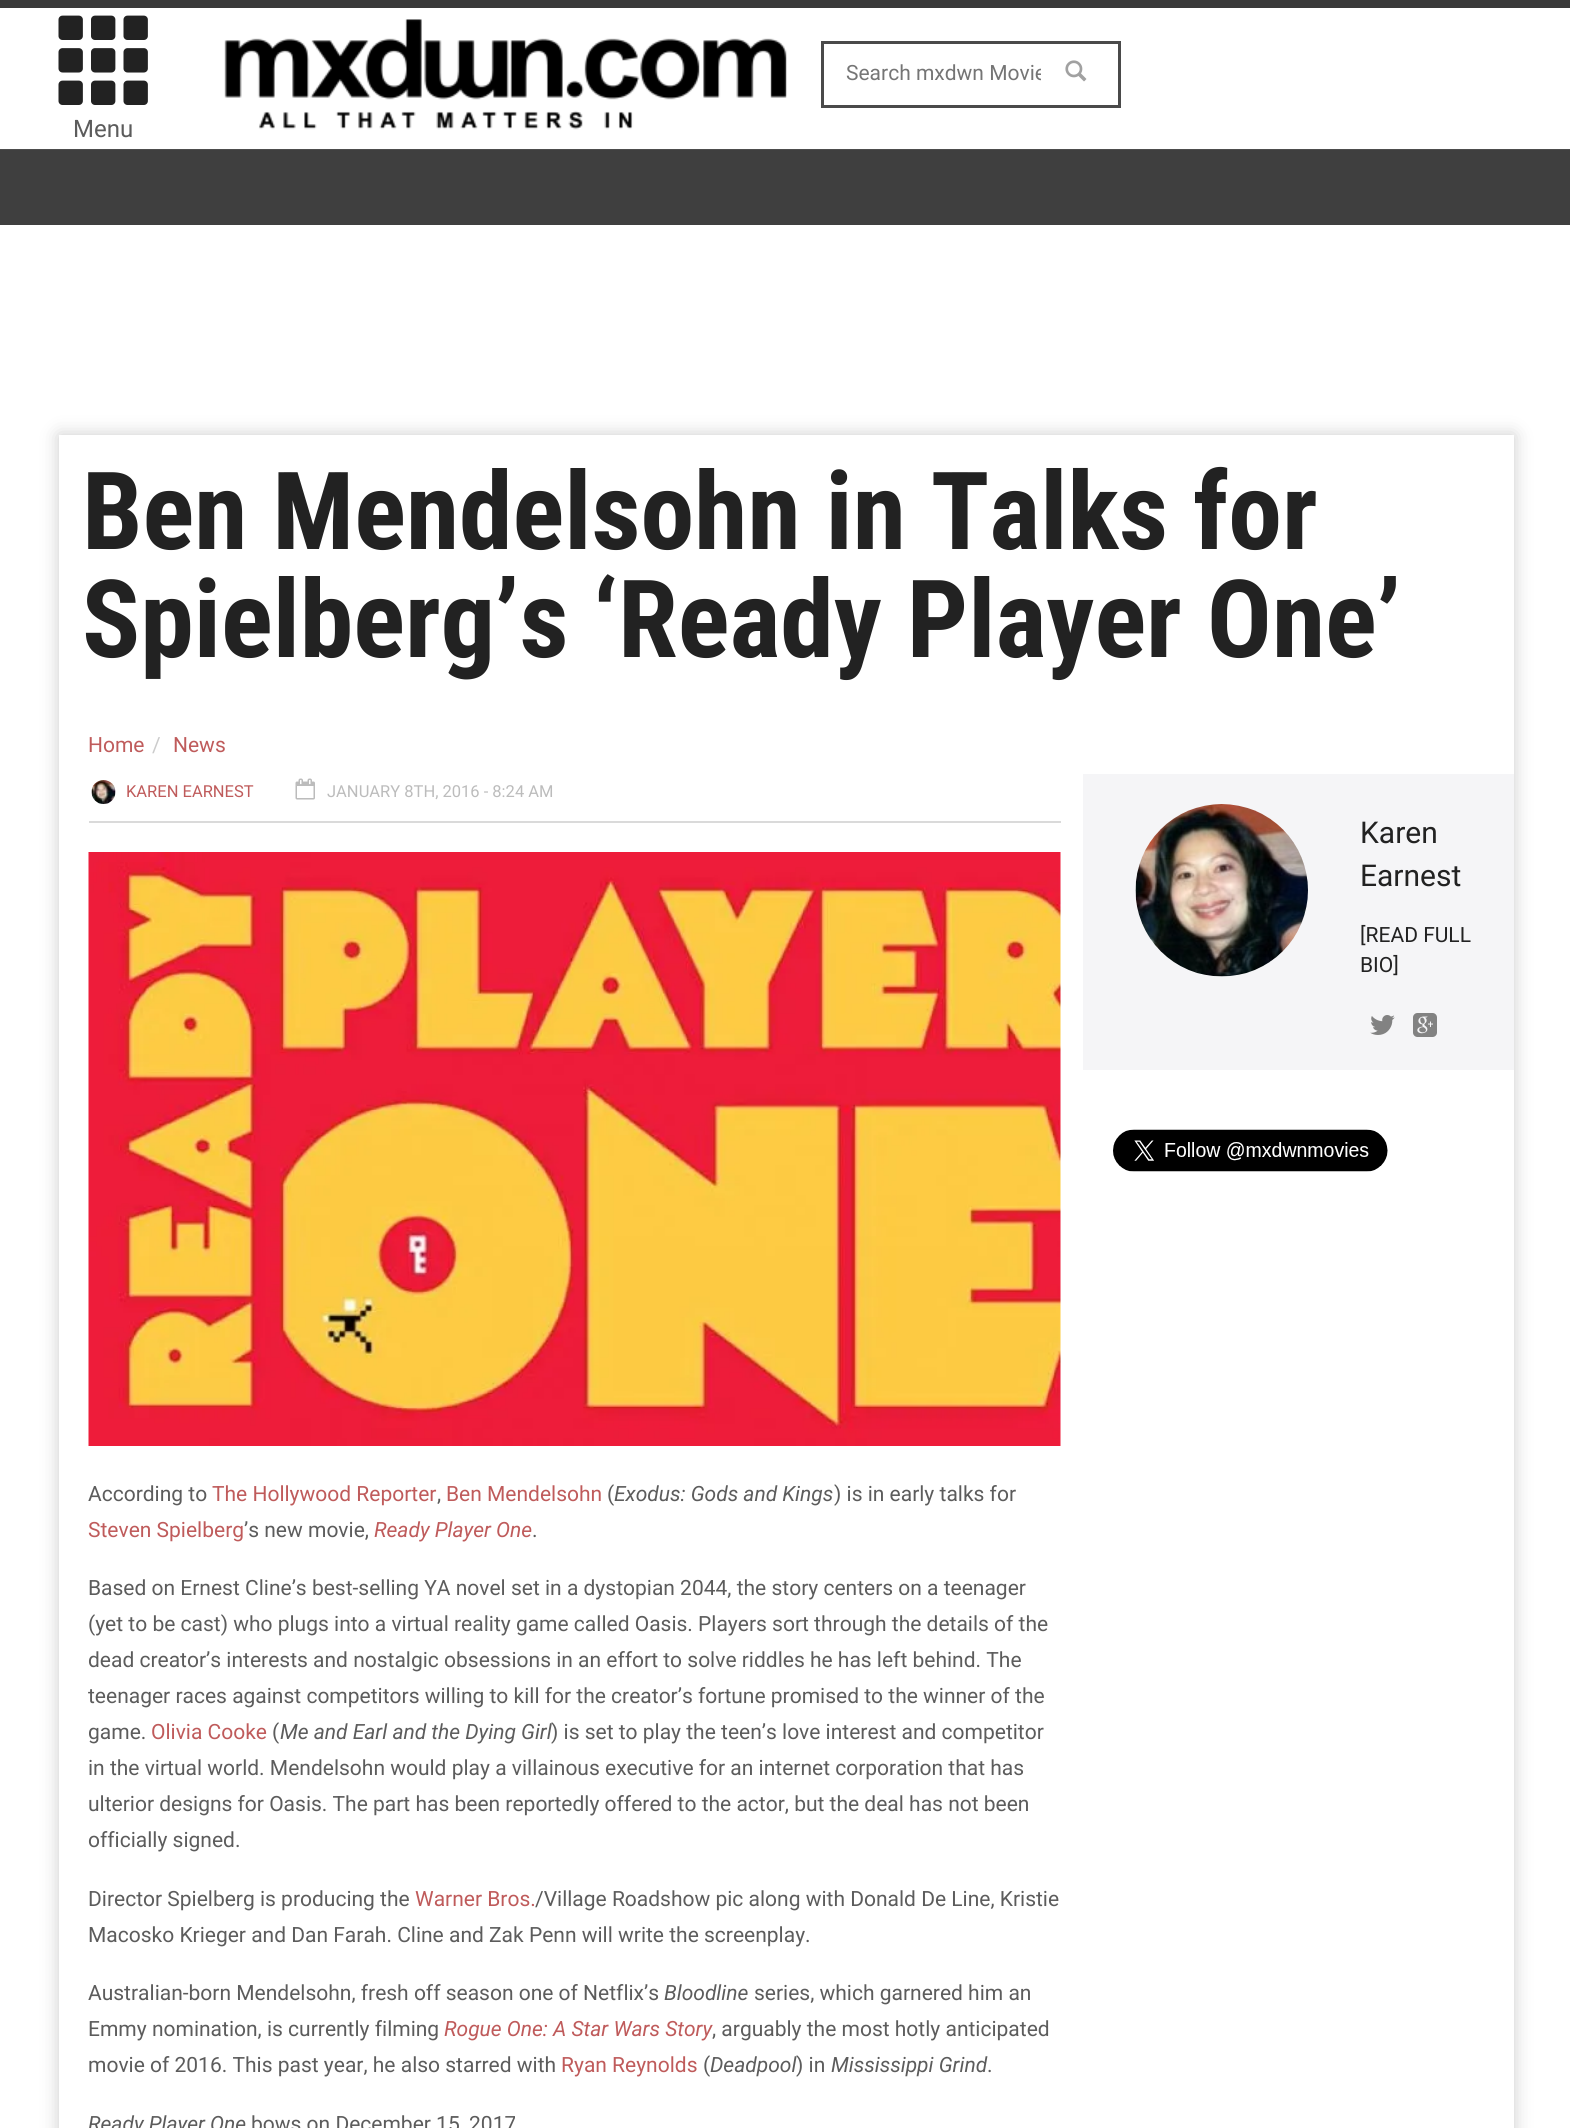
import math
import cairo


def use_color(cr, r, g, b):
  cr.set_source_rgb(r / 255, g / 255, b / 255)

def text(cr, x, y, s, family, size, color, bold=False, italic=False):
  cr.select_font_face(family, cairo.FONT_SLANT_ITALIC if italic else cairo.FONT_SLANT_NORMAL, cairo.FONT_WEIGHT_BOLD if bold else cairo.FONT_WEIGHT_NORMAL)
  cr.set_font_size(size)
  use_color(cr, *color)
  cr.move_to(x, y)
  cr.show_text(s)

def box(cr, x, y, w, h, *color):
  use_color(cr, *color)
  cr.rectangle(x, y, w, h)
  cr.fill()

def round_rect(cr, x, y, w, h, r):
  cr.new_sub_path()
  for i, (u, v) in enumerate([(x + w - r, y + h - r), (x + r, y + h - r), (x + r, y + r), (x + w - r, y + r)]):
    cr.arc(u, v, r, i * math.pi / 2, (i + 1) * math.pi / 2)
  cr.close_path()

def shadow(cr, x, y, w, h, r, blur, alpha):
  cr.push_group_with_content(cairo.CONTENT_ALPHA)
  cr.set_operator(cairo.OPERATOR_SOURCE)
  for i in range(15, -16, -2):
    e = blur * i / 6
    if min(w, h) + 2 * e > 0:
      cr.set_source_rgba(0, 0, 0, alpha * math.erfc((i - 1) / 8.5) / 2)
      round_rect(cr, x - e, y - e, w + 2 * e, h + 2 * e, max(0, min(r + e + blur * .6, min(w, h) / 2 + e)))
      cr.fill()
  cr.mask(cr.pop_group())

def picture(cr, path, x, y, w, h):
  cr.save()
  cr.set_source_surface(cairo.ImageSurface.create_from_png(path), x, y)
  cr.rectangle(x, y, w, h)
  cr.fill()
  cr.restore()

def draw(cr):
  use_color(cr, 255, 255, 255)
  cr.paint()
  box(cr, 0, 0, 1570, 8, 58, 58, 58)
  box(cr, 0, 149, 1570, 1, 77, 77, 77)
  picture(cr, "img_01.png", 224, 19, 563, 111)
  cr.rectangle(822.5, 42.5, 297, 64)
  use_color(cr, 74, 74, 74)
  cr.set_line_width(3)
  cr.stroke()
  picture(cr, "img_02.png", 1065, 60, 22, 22)
  picture(cr, "img_03.png", 58, 15, 90, 90)
  box(cr, 0, 150, 1570, 75, 63, 63, 63)
  use_color(cr, 204, 204, 204)
  shadow(cr, 59, 435, 1455, 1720, 0, 9, 1)
  box(cr, 59, 435, 1455, 1693, 255, 255, 255)
  box(cr, 89, 821, 972, 2, 218, 218, 218)
  picture(cr, "img_04.png", 91, 780, 25, 24)
  picture(cr, "img_05.png", 295, 778, 20, 22)
  picture(cr, "img_06.png", 88, 852, 973, 594)
  box(cr, 1083, 774, 431, 296, 245, 245, 247)
  picture(cr, "img_07.png", 1135, 804, 173, 173)
  picture(cr, "img_08.png", 1370, 1015, 25, 20)
  picture(cr, "img_09.png", 1413, 1013, 24, 24)
  picture(cr, "img_10.png", 1113, 1129, 275, 43)
  cr.save()
  cr.rectangle(846, 60, 195, 24)
  cr.clip()
  text(cr, 846, 80, "Search mxdwn Movie", "Roboto", 21, (117, 117, 117))
  cr.restore()
  text(cr, 73, 137, "Menu", "Roboto", 24, (92, 92, 92))
  text(cr, 82, 549, "Ben Mendelsohn in Talks for", "Roboto Condensed", 108, (34, 34, 34), bold=True)
  text(cr, 82, 657, "Spielberg’s ‘Ready Player One’", "Roboto Condensed", 108, (34, 34, 34), bold=True)
  text(cr, 88, 752, "Home", "Roboto", 21, (191, 91, 91))
  text(cr, 152, 752, "/", "Roboto", 21, (204, 204, 204))
  text(cr, 173, 752, "News", "Roboto", 21, (191, 91, 91))
  text(cr, 126, 797, "KAREN EARNEST", "Roboto", 16.5, (191, 91, 91))
  text(cr, 327, 797, "JANUARY 8TH, 2016 - 8:24 AM", "Roboto", 16.5, (188, 188, 188))
  text(cr, 88, 1501, "According to", "Roboto", 21, (92, 92, 92))
  text(cr, 212, 1501, "The Hollywood Reporter", "Roboto", 21, (191, 91, 91))
  text(cr, 437, 1501, ",", "Roboto", 21, (92, 92, 92))
  text(cr, 446, 1501, "Ben Mendelsohn", "Roboto", 21, (191, 91, 91))
  text(cr, 607, 1501, "(", "Roboto", 21, (92, 92, 92))
  text(cr, 614, 1501, "Exodus: Gods and Kings", "Roboto", 21, (92, 92, 92), italic=True)
  text(cr, 834, 1501, ") is in early talks for", "Roboto", 21, (92, 92, 92))
  text(cr, 88, 1537, "Steven Spielberg", "Roboto", 21, (191, 91, 91))
  text(cr, 244, 1537, "’s new movie,", "Roboto", 21, (92, 92, 92))
  text(cr, 374, 1537, "Ready Player One", "Roboto", 21, (191, 91, 91), italic=True)
  text(cr, 532, 1537, ".", "Roboto", 21, (92, 92, 92))
  text(cr, 88, 1595, "Based on Ernest Cline’s best-selling YA novel set in a dystopian 2044, the story centers on a teenager", "Roboto", 21, (92, 92, 92))
  text(cr, 88, 1631, "(yet to be cast) who plugs into a virtual reality game called Oasis. Players sort through the details of the", "Roboto", 21, (92, 92, 92))
  text(cr, 88, 1667, "dead creator’s interests and nostalgic obsessions in an effort to solve riddles he has left behind. The", "Roboto", 21, (92, 92, 92))
  text(cr, 88, 1703, "teenager races against competitors willing to kill for the creator’s fortune promised to the winner of the", "Roboto", 21, (92, 92, 92))
  text(cr, 88, 1739, "game.", "Roboto", 21, (92, 92, 92))
  text(cr, 151, 1739, "Olivia Cooke", "Roboto", 21, (191, 91, 91))
  text(cr, 272, 1739, "(", "Roboto", 21, (92, 92, 92))
  text(cr, 280, 1739, "Me and Earl and the Dying Girl", "Roboto", 21, (92, 92, 92), italic=True)
  text(cr, 551, 1739, ") is set to play the teen’s love interest and competitor", "Roboto", 21, (92, 92, 92))
  text(cr, 88, 1775, "in the virtual world. Mendelsohn would play a villainous executive for an internet corporation that has", "Roboto", 21, (92, 92, 92))
  text(cr, 88, 1811, "ulterior designs for Oasis. The part has been reportedly offered to the actor, but the deal has not been", "Roboto", 21, (92, 92, 92))
  text(cr, 88, 1847, "officially signed.", "Roboto", 21, (92, 92, 92))
  text(cr, 88, 1906, "Director Spielberg is producing the", "Roboto", 21, (92, 92, 92))
  text(cr, 415, 1906, "Warner Bros.", "Roboto", 21, (191, 91, 91))
  text(cr, 535, 1906, "/Village Roadshow pic along with Donald De Line, Kristie", "Roboto", 21, (92, 92, 92))
  text(cr, 88, 1942, "Macosko Krieger and Dan Farah. Cline and Zak Penn will write the screenplay.", "Roboto", 21, (92, 92, 92))
  text(cr, 88, 2000, "Australian-born Mendelsohn, fresh off season one of Netflix’s", "Roboto", 21, (92, 92, 92))
  text(cr, 664, 2000, "Bloodline", "Roboto", 21, (92, 92, 92), italic=True)
  text(cr, 754, 2000, "series, which garnered him an", "Roboto", 21, (92, 92, 92))
  text(cr, 88, 2036, "Emmy nomination, is currently filming", "Roboto", 21, (92, 92, 92))
  text(cr, 444, 2036, "Rogue One: A Star Wars Story", "Roboto", 21, (191, 91, 91), italic=True)
  text(cr, 712, 2036, ", arguably the most hotly anticipated", "Roboto", 21, (92, 92, 92))
  text(cr, 88, 2072, "movie of 2016. This past year, he also starred with", "Roboto", 21, (92, 92, 92))
  text(cr, 561, 2072, "Ryan Reynolds", "Roboto", 21, (191, 91, 91))
  text(cr, 703, 2072, "(", "Roboto", 21, (92, 92, 92))
  text(cr, 710, 2072, "Deadpool", "Roboto", 21, (92, 92, 92), italic=True)
  text(cr, 796, 2072, ") in", "Roboto", 21, (92, 92, 92))
  text(cr, 831, 2072, "Mississippi Grind", "Roboto", 21, (92, 92, 92), italic=True)
  text(cr, 987, 2072, ".", "Roboto", 21, (92, 92, 92))
  text(cr, 88, 2131, "Ready Player One", "Roboto", 21, (92, 92, 92), italic=True)
  text(cr, 251, 2131, "bows on December 15, 2017", "Roboto", 21, (92, 92, 92))
  text(cr, 1360, 843, "Karen", "Roboto", 30, (34, 34, 34))
  text(cr, 1360, 886, "Earnest", "Roboto", 30, (34, 34, 34))
  text(cr, 1360, 942, "[READ FULL", "Roboto", 21, (34, 34, 34))
  text(cr, 1360, 972, "BIO]", "Roboto", 21, (34, 34, 34))


surface = cairo.ImageSurface(cairo.FORMAT_RGB24, 1570, 2128)
cr = cairo.Context(surface)
options = cairo.FontOptions()
options.set_hint_metrics(cairo.HINT_METRICS_OFF)
options.set_hint_style(cairo.HINT_STYLE_NONE)
cr.set_font_options(options)
cr.set_miter_limit(4)
draw(cr)
surface.write_to_png("out.png")
